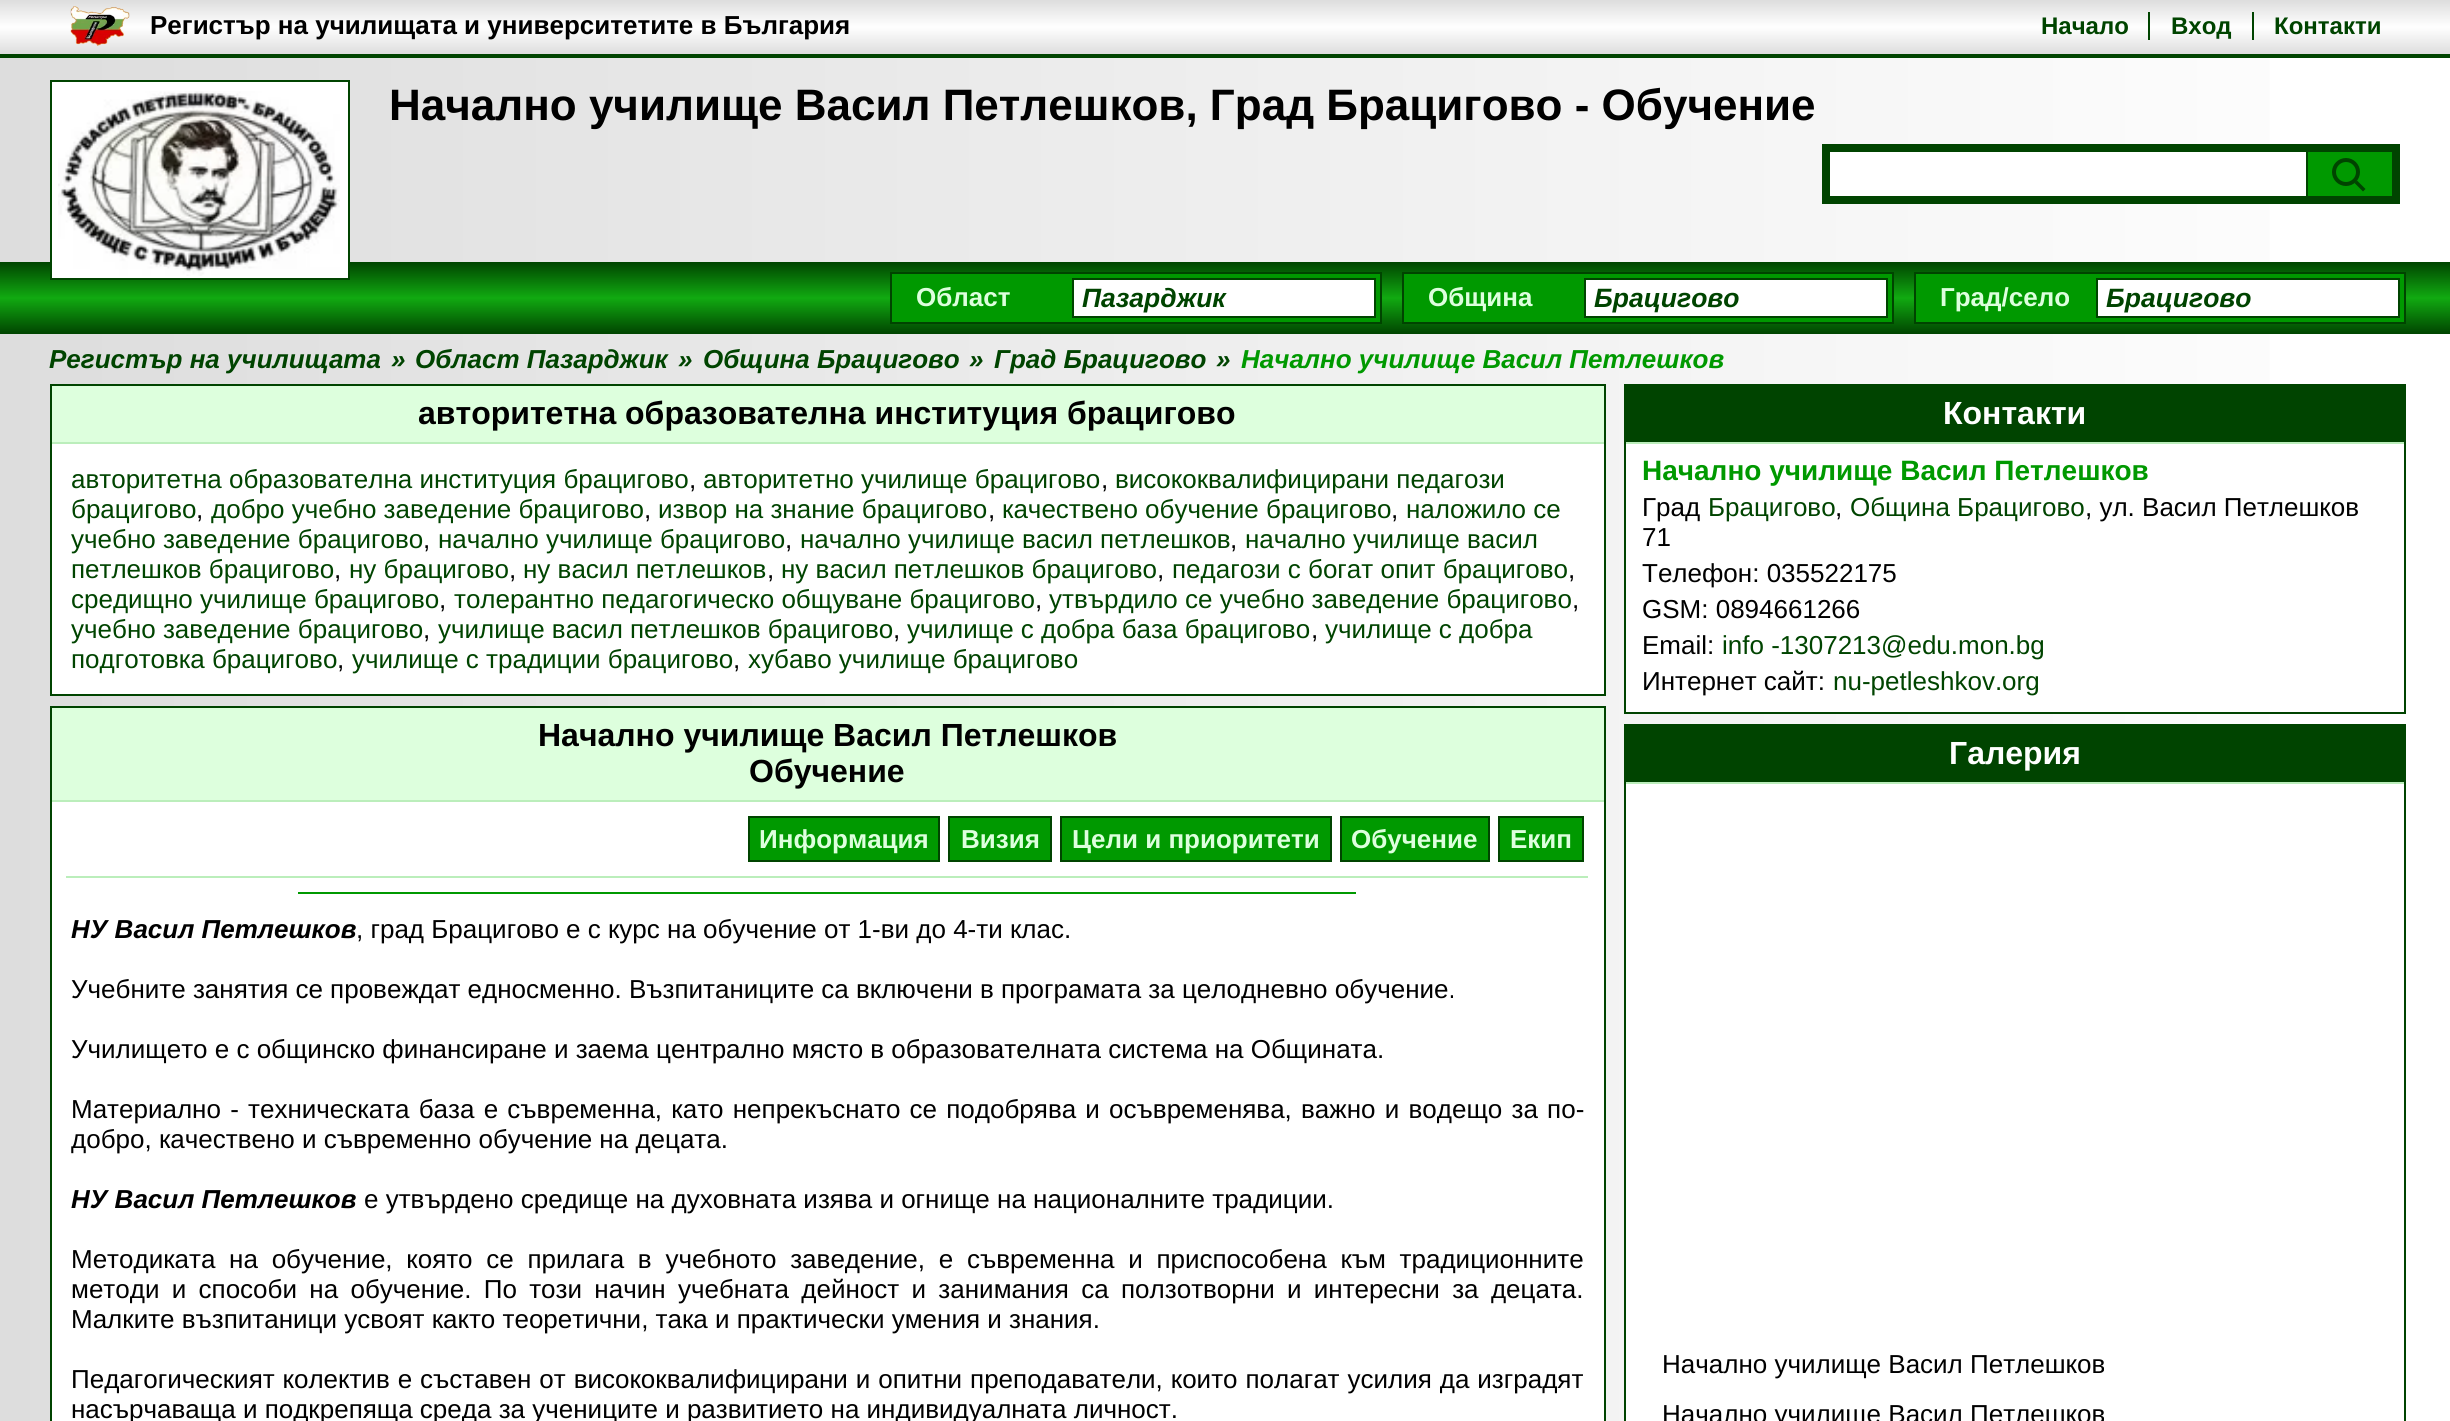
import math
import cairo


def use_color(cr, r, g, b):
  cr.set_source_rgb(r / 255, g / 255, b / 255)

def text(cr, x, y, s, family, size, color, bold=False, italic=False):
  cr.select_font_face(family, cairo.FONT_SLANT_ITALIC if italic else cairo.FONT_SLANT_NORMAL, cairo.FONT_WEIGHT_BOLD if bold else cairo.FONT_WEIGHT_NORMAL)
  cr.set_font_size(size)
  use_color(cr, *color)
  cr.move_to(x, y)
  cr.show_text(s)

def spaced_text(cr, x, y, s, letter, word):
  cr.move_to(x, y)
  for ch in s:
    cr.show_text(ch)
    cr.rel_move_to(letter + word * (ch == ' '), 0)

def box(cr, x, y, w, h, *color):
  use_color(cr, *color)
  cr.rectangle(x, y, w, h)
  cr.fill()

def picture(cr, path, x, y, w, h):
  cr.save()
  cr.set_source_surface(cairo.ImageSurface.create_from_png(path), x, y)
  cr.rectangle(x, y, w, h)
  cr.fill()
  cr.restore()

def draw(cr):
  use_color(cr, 255, 255, 255)
  cr.paint()
  gradient = cairo.LinearGradient(2450, 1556, 0, 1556)
  gradient.add_color_stop_rgba(0, 1, 1, 1, 1)
  gradient.add_color_stop_rgba(1, 0.867, 0.867, 0.867, 1)
  cr.set_source(gradient)
  cr.rectangle(0, 58, 2270, 1363)
  cr.fill()
  gradient = cairo.LinearGradient(1225, 54, 1225, 0)
  gradient.add_color_stop_rgba(0, 0.867, 0.867, 0.867, 1)
  gradient.add_color_stop_rgba(0.5, 1, 1, 1, 1)
  gradient.add_color_stop_rgba(1, 0.867, 0.867, 0.867, 1)
  cr.set_source(gradient)
  cr.rectangle(0, 0, 2450, 54)
  cr.fill()
  box(cr, 0, 54, 2450, 4, 0, 68, 0)
  picture(cr, "img_01.png", 70, 6, 60, 40)
  box(cr, 2148, 12, 2, 28, 0, 68, 0)
  box(cr, 2252, 12, 2, 28, 0, 68, 0)
  gradient = cairo.LinearGradient(1225, 334, 1225, 262)
  gradient.add_color_stop_rgba(0, 0, 0.267, 0, 1)
  gradient.add_color_stop_rgba(0.5, 0.067, 0.667, 0.067, 1)
  gradient.add_color_stop_rgba(1, 0, 0.267, 0, 1)
  cr.set_source(gradient)
  cr.rectangle(0, 262, 2450, 72)
  cr.fill()
  use_color(cr, 255, 255, 255)
  cr.rectangle(51, 81, 298, 198)
  cr.fill_preserve()
  use_color(cr, 0, 68, 0)
  cr.stroke()
  picture(cr, "img_02.png", 58, 91, 282, 185)
  box(cr, 1822, 144, 578, 60, 0, 68, 0)
  box(cr, 1830, 152, 476, 44, 255, 255, 255)
  box(cr, 2308, 152, 84, 44, 0, 153, 0)
  cr.arc(2346, 172, 12, 0, 2 * math.pi)
  use_color(cr, 0, 68, 0)
  cr.set_line_width(4)
  cr.stroke()
  cr.new_path()
  cr.move_to(2357, 180.5)
  cr.line_to(2365.5, 189)
  cr.line_to(2363, 191.5)
  cr.line_to(2354.5, 183)
  cr.close_path()
  cr.fill()
  use_color(cr, 0, 153, 0)
  cr.rectangle(891, 273, 490, 50)
  cr.fill_preserve()
  use_color(cr, 0, 68, 0)
  cr.set_line_width(2)
  cr.stroke()
  use_color(cr, 255, 255, 255)
  cr.rectangle(1073, 279, 302, 38)
  cr.fill_preserve()
  use_color(cr, 0, 68, 0)
  cr.stroke()
  use_color(cr, 0, 153, 0)
  cr.rectangle(1403, 273, 490, 50)
  cr.fill_preserve()
  use_color(cr, 0, 68, 0)
  cr.stroke()
  use_color(cr, 255, 255, 255)
  cr.rectangle(1585, 279, 302, 38)
  cr.fill_preserve()
  use_color(cr, 0, 68, 0)
  cr.stroke()
  use_color(cr, 0, 153, 0)
  cr.rectangle(1915, 273, 490, 50)
  cr.fill_preserve()
  use_color(cr, 0, 68, 0)
  cr.stroke()
  use_color(cr, 255, 255, 255)
  cr.rectangle(2097, 279, 302, 38)
  cr.fill_preserve()
  use_color(cr, 0, 68, 0)
  cr.stroke()
  box(cr, 52, 444, 1552, 250, 255, 255, 255)
  cr.rectangle(51, 385, 1554, 310)
  use_color(cr, 0, 68, 0)
  cr.stroke()
  box(cr, 52, 386, 1552, 56, 221, 255, 221)
  box(cr, 52, 442, 1552, 2, 187, 238, 187)
  box(cr, 52, 802, 1552, 619, 255, 255, 255)
  cr.rectangle(51, 707, 1554, 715)
  use_color(cr, 0, 68, 0)
  cr.stroke()
  box(cr, 52, 708, 1552, 92, 221, 255, 221)
  box(cr, 52, 800, 1552, 2, 187, 238, 187)
  box(cr, 66, 876, 1522, 2, 187, 238, 187)
  use_color(cr, 0, 153, 0)
  cr.rectangle(749, 817, 190, 44)
  cr.fill_preserve()
  use_color(cr, 0, 68, 0)
  cr.stroke()
  use_color(cr, 0, 153, 0)
  cr.rectangle(949, 817, 102, 44)
  cr.fill_preserve()
  use_color(cr, 0, 68, 0)
  cr.stroke()
  use_color(cr, 0, 153, 0)
  cr.rectangle(1061, 817, 270, 44)
  cr.fill_preserve()
  use_color(cr, 0, 68, 0)
  cr.stroke()
  use_color(cr, 0, 153, 0)
  cr.rectangle(1341, 817, 148, 44)
  cr.fill_preserve()
  use_color(cr, 0, 68, 0)
  cr.stroke()
  use_color(cr, 0, 153, 0)
  cr.rectangle(1499, 817, 84, 44)
  cr.fill_preserve()
  use_color(cr, 0, 68, 0)
  cr.stroke()
  box(cr, 298, 892, 1058, 2, 0, 153, 0)
  box(cr, 1626, 444, 644, 268, 255, 255, 255)
  cr.rectangle(1625, 385, 780, 328)
  use_color(cr, 0, 68, 0)
  cr.stroke()
  box(cr, 1626, 386, 778, 56, 0, 68, 0)
  box(cr, 1626, 442, 778, 2, 187, 238, 187)
  box(cr, 1626, 784, 644, 637, 255, 255, 255)
  cr.rectangle(1625, 725, 780, 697)
  use_color(cr, 0, 68, 0)
  cr.stroke()
  box(cr, 1626, 726, 778, 56, 0, 68, 0)
  box(cr, 1626, 782, 778, 2, 187, 238, 187)
  text(cr, 150, 34, "Регистър на училищата и университетите в България", "Liberation Sans", 26, (0, 0, 0), bold=True)
  text(cr, 2041, 34, "Начало", "Liberation Sans", 24, (0, 68, 0), bold=True)
  text(cr, 2171, 34, "Вход", "Liberation Sans", 24, (0, 68, 0), bold=True)
  text(cr, 2274, 34, "Контакти", "Liberation Sans", 24, (0, 68, 0), bold=True)
  text(cr, 389, 120, "Начално училище Васил Петлешков, Град Брацигово - Обучение", "Liberation Sans", 44, (0, 0, 0), bold=True)
  text(cr, 916, 306, "Област", "Liberation Sans", 26, (221, 255, 221), bold=True)
  text(cr, 1082, 307, "Пазарджик", "Liberation Sans", 26.5, (0, 68, 0), bold=True, italic=True)
  text(cr, 1428, 306, "Община", "Liberation Sans", 26, (221, 255, 221), bold=True)
  text(cr, 1594, 307, "Брацигово", "Liberation Sans", 26.5, (0, 68, 0), bold=True, italic=True)
  text(cr, 1940, 306, "Град/село", "Liberation Sans", 26, (221, 255, 221), bold=True)
  text(cr, 2106, 307, "Брацигово", "Liberation Sans", 26.5, (0, 68, 0), bold=True, italic=True)
  text(cr, 49, 368, "Регистър на училищата", "Liberation Sans", 26, (0, 68, 0), bold=True, italic=True)
  text(cr, 391, 368, "»", "Liberation Sans", 26, (0, 68, 0), bold=True, italic=True)
  text(cr, 415, 368, "Област Пазарджик", "Liberation Sans", 26, (0, 68, 0), bold=True, italic=True)
  text(cr, 678, 368, "»", "Liberation Sans", 26, (0, 68, 0), bold=True, italic=True)
  text(cr, 703, 368, "Община Брацигово", "Liberation Sans", 26, (0, 68, 0), bold=True, italic=True)
  text(cr, 969, 368, "»", "Liberation Sans", 26, (0, 68, 0), bold=True, italic=True)
  text(cr, 994, 368, "Град Брацигово", "Liberation Sans", 26, (0, 68, 0), bold=True, italic=True)
  text(cr, 1216, 368, "»", "Liberation Sans", 26, (0, 68, 0), bold=True, italic=True)
  text(cr, 1241, 368, "Начално училище Васил Петлешков", "Liberation Sans", 26, (0, 153, 0), bold=True, italic=True)
  text(cr, 418, 424, "авторитетна образователна институция брацигово", "Liberation Sans", 32, (0, 0, 0), bold=True)
  text(cr, 71, 488, "авторитетна образователна институция брацигово", "Liberation Sans", 26, (0, 68, 0))
  text(cr, 689, 488, ",", "Liberation Sans", 26, (0, 0, 0))
  text(cr, 703, 488, "авторитетно училище брацигово", "Liberation Sans", 26, (0, 68, 0))
  text(cr, 1101, 488, ",", "Liberation Sans", 26, (0, 0, 0))
  text(cr, 1115, 488, "висококвалифицирани педагози", "Liberation Sans", 26, (0, 68, 0))
  text(cr, 71, 518, "брацигово", "Liberation Sans", 26, (0, 68, 0))
  text(cr, 196, 518, ",", "Liberation Sans", 26, (0, 0, 0))
  text(cr, 211, 518, "добро учебно заведение брацигово", "Liberation Sans", 26, (0, 68, 0))
  text(cr, 644, 518, ",", "Liberation Sans", 26, (0, 0, 0))
  text(cr, 658, 518, "извор на знание брацигово", "Liberation Sans", 26, (0, 68, 0))
  text(cr, 988, 518, ",", "Liberation Sans", 26, (0, 0, 0))
  text(cr, 1002, 518, "качествено обучение брацигово", "Liberation Sans", 26, (0, 68, 0))
  text(cr, 1391, 518, ",", "Liberation Sans", 26, (0, 0, 0))
  text(cr, 1406, 518, "наложило се", "Liberation Sans", 26, (0, 68, 0))
  text(cr, 71, 548, "учебно заведение брацигово", "Liberation Sans", 26, (0, 68, 0))
  text(cr, 423, 548, ",", "Liberation Sans", 26, (0, 0, 0))
  text(cr, 438, 548, "начално училище брацигово", "Liberation Sans", 26, (0, 68, 0))
  text(cr, 785, 548, ",", "Liberation Sans", 26, (0, 0, 0))
  text(cr, 800, 548, "начално училище васил петлешков", "Liberation Sans", 26, (0, 68, 0))
  text(cr, 1230, 548, ",", "Liberation Sans", 26, (0, 0, 0))
  text(cr, 1245, 548, "начално училище васил", "Liberation Sans", 26, (0, 68, 0))
  text(cr, 71, 578, "петлешков брацигово", "Liberation Sans", 26, (0, 68, 0))
  text(cr, 334, 578, ",", "Liberation Sans", 26, (0, 0, 0))
  text(cr, 349, 578, "ну брацигово", "Liberation Sans", 26, (0, 68, 0))
  text(cr, 509, 578, ",", "Liberation Sans", 26, (0, 0, 0))
  text(cr, 523, 578, "ну васил петлешков", "Liberation Sans", 26, (0, 68, 0))
  text(cr, 767, 578, ",", "Liberation Sans", 26, (0, 0, 0))
  text(cr, 781, 578, "ну васил петлешков брацигово", "Liberation Sans", 26, (0, 68, 0))
  text(cr, 1157, 578, ",", "Liberation Sans", 26, (0, 0, 0))
  text(cr, 1172, 578, "педагози с богат опит брацигово", "Liberation Sans", 26, (0, 68, 0))
  text(cr, 1568, 578, ",", "Liberation Sans", 26, (0, 0, 0))
  text(cr, 71, 608, "средищно училище брацигово", "Liberation Sans", 26, (0, 68, 0))
  text(cr, 439, 608, ",", "Liberation Sans", 26, (0, 0, 0))
  text(cr, 454, 608, "толерантно педагогическо общуване брацигово", "Liberation Sans", 26, (0, 68, 0))
  text(cr, 1035, 608, ",", "Liberation Sans", 26, (0, 0, 0))
  text(cr, 1049, 608, "утвърдило се учебно заведение брацигово", "Liberation Sans", 26, (0, 68, 0))
  text(cr, 1572, 608, ",", "Liberation Sans", 26, (0, 0, 0))
  text(cr, 71, 638, "учебно заведение брацигово", "Liberation Sans", 26, (0, 68, 0))
  text(cr, 423, 638, ",", "Liberation Sans", 26, (0, 0, 0))
  text(cr, 438, 638, "училище васил петлешков брацигово", "Liberation Sans", 26, (0, 68, 0))
  text(cr, 893, 638, ",", "Liberation Sans", 26, (0, 0, 0))
  text(cr, 907, 638, "училище с добра база брацигово", "Liberation Sans", 26, (0, 68, 0))
  text(cr, 1311, 638, ",", "Liberation Sans", 26, (0, 0, 0))
  text(cr, 1325, 638, "училище с добра", "Liberation Sans", 26, (0, 68, 0))
  text(cr, 71, 668, "подготовка брацигово", "Liberation Sans", 26, (0, 68, 0))
  text(cr, 337, 668, ",", "Liberation Sans", 26, (0, 0, 0))
  text(cr, 352, 668, "училище с традиции брацигово", "Liberation Sans", 26, (0, 68, 0))
  text(cr, 733, 668, ",", "Liberation Sans", 26, (0, 0, 0))
  text(cr, 748, 668, "хубаво училище брацигово", "Liberation Sans", 26, (0, 68, 0))
  text(cr, 538, 746, "Начално училище Васил Петлешков", "Liberation Sans", 32, (0, 0, 0), bold=True)
  text(cr, 749, 782, "Обучение", "Liberation Sans", 32, (0, 0, 0), bold=True)
  text(cr, 759, 848, "Информация", "Liberation Sans", 26, (221, 255, 221), bold=True)
  text(cr, 961, 848, "Визия", "Liberation Sans", 26, (221, 255, 221), bold=True)
  text(cr, 1072, 848, "Цели и приоритети", "Liberation Sans", 26, (221, 255, 221), bold=True)
  text(cr, 1351, 848, "Обучение", "Liberation Sans", 26, (221, 255, 221), bold=True)
  text(cr, 1510, 848, "Екип", "Liberation Sans", 26, (221, 255, 221), bold=True)
  text(cr, 71, 938, "НУ Васил Петлешков", "Liberation Sans", 26, (0, 0, 0), bold=True, italic=True)
  text(cr, 356, 938, ", град Брацигово е с курс на обучение от 1-ви до 4-ти клас.", "Liberation Sans", 26, (0, 0, 0))
  text(cr, 71, 998, "Учебните занятия се провеждат едносменно. Възпитаниците са включени в програмата за целодневно обучение.", "Liberation Sans", 26, (0, 0, 0))
  text(cr, 71, 1058, "Училището е с общинско финансиране и заема централно място в образователната система на Общината.", "Liberation Sans", 26, (0, 0, 0))
  spaced_text(cr, 71, 1118, "Материално - техническата база е съвременна, като непрекъснато се подобрява и осъвременява, важно и водещо за по-", 0, 2)
  text(cr, 71, 1148, "добро, качествено и съвременно обучение на децата.", "Liberation Sans", 26, (0, 0, 0))
  text(cr, 71, 1208, "НУ Васил Петлешков", "Liberation Sans", 26, (0, 0, 0), bold=True, italic=True)
  text(cr, 364, 1208, "е утвърдено средище на духовната изява и огнище на националните традиции.", "Liberation Sans", 26, (0, 0, 0))
  spaced_text(cr, 71, 1268, "Методиката на обучение, която се прилага в учебното заведение, е съвременна и приспособена към традиционните", 0, 6.5)
  spaced_text(cr, 71, 1298, "методи и способи на обучение. По този начин учебната дейност и занимания са ползотворни и интересни за децата.", 0, 5.1)
  text(cr, 71, 1328, "Малките възпитаници усвоят както теоретични, така и практически умения и знания.", "Liberation Sans", 26, (0, 0, 0))
  spaced_text(cr, 71, 1388, "Педагогическият колектив е съставен от висококвалифицирани и опитни преподаватели, които полагат усилия да изградят", 0, 0.75)
  text(cr, 71, 1418, "насърчаваща и подкрепяща среда за учениците и развитието на индивидуалната личност.", "Liberation Sans", 26, (0, 0, 0))
  text(cr, 1943, 424, "Контакти", "Liberation Sans", 32, (255, 255, 255), bold=True)
  text(cr, 1642, 480, "Начално училище Васил Петлешков", "Liberation Sans", 28, (0, 153, 0), bold=True)
  text(cr, 1642, 516, "Град", "Liberation Sans", 26, (0, 0, 0))
  text(cr, 1708, 516, "Брацигово", "Liberation Sans", 26, (0, 68, 0))
  text(cr, 1835, 516, ",", "Liberation Sans", 26, (0, 0, 0))
  text(cr, 1850, 516, "Община Брацигово", "Liberation Sans", 26, (0, 68, 0))
  text(cr, 2085, 516, ", ул. Васил Петлешков", "Liberation Sans", 26, (0, 0, 0))
  text(cr, 1642, 546, "71", "Liberation Sans", 26, (0, 0, 0))
  text(cr, 1642, 582, "Телефон: 035522175", "Liberation Sans", 26, (0, 0, 0))
  text(cr, 1642, 618, "GSM: 0894661266", "Liberation Sans", 26, (0, 0, 0))
  text(cr, 1642, 654, "Email:", "Liberation Sans", 26, (0, 0, 0))
  text(cr, 1722, 654, "info -1307213@edu.mon.bg", "Liberation Sans", 26, (0, 68, 0))
  text(cr, 1642, 690, "Интернет сайт:", "Liberation Sans", 26, (0, 0, 0))
  text(cr, 1833, 690, "nu-petleshkov.org", "Liberation Sans", 26, (0, 68, 0))
  text(cr, 1949, 764, "Галерия", "Liberation Sans", 32, (255, 255, 255), bold=True)
  text(cr, 1662, 1373, "Начално училище Васил Петлешков", "Liberation Sans", 26, (0, 0, 0))
  text(cr, 1662, 1423, "Начално училище Васил Петлешков", "Liberation Sans", 26, (0, 0, 0))


surface = cairo.ImageSurface(cairo.FORMAT_RGB24, 2450, 1421)
cr = cairo.Context(surface)
options = cairo.FontOptions()
options.set_hint_metrics(cairo.HINT_METRICS_OFF)
options.set_hint_style(cairo.HINT_STYLE_NONE)
cr.set_font_options(options)
cr.set_miter_limit(4)
draw(cr)
surface.write_to_png("out.png")
